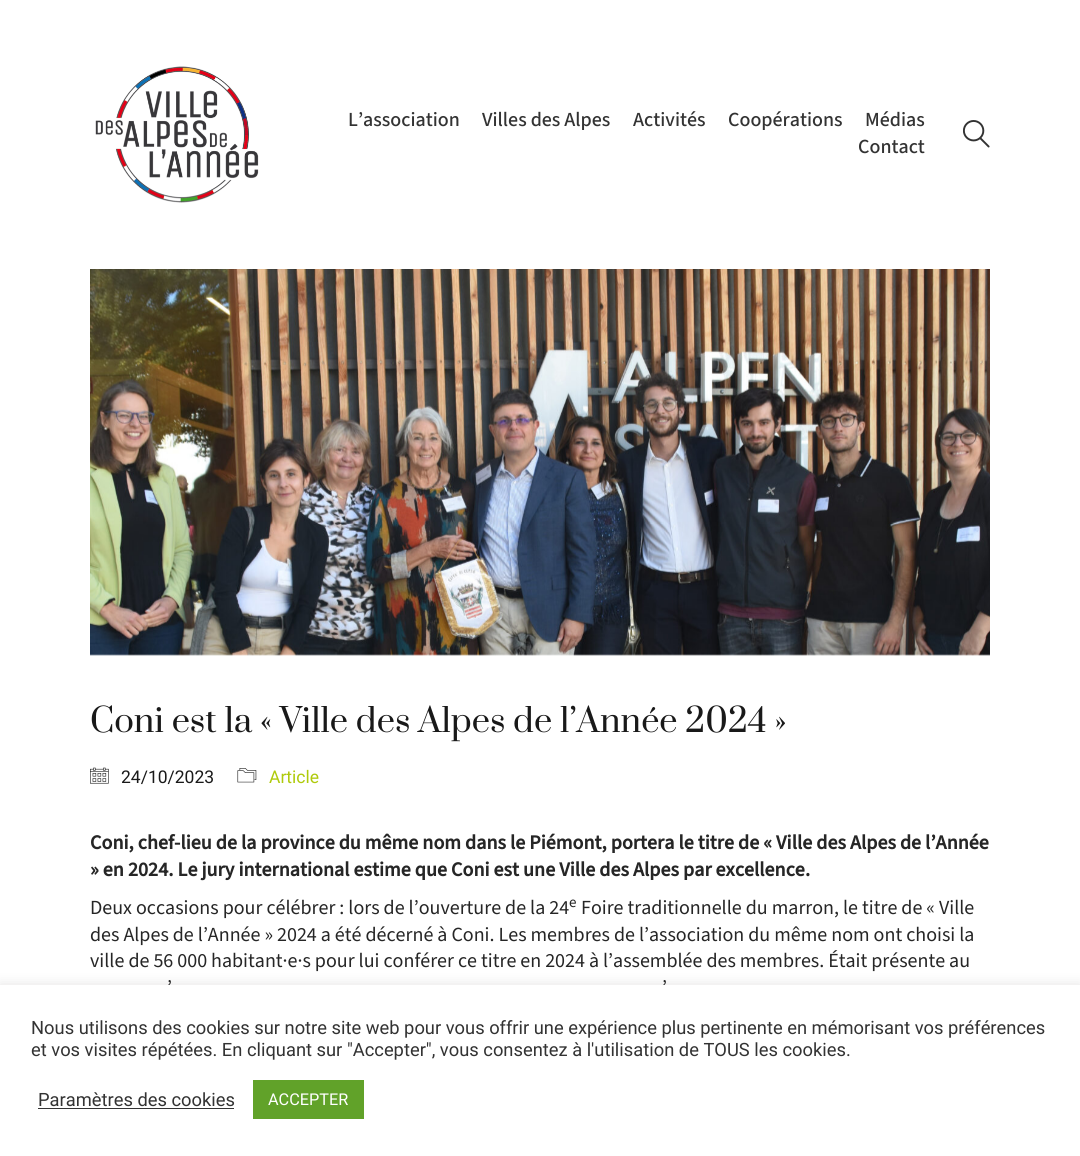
import math
import cairo


def use_color(cr, r, g, b):
  cr.set_source_rgb(r / 255, g / 255, b / 255)

def text(cr, x, y, s, family, size, color, bold=False, italic=False):
  cr.select_font_face(family, cairo.FONT_SLANT_ITALIC if italic else cairo.FONT_SLANT_NORMAL, cairo.FONT_WEIGHT_BOLD if bold else cairo.FONT_WEIGHT_NORMAL)
  cr.set_font_size(size)
  use_color(cr, *color)
  cr.move_to(x, y)
  cr.show_text(s)

def box(cr, x, y, w, h, *color):
  use_color(cr, *color)
  cr.rectangle(x, y, w, h)
  cr.fill()

def round_rect(cr, x, y, w, h, r):
  cr.new_sub_path()
  for i, (u, v) in enumerate([(x + w - r, y + h - r), (x + r, y + h - r), (x + r, y + r), (x + w - r, y + r)]):
    cr.arc(u, v, r, i * math.pi / 2, (i + 1) * math.pi / 2)
  cr.close_path()

def shadow(cr, x, y, w, h, r, blur, alpha):
  cr.push_group_with_content(cairo.CONTENT_ALPHA)
  cr.set_operator(cairo.OPERATOR_SOURCE)
  for i in range(15, -16, -2):
    e = blur * i / 6
    if min(w, h) + 2 * e > 0:
      cr.set_source_rgba(0, 0, 0, alpha * math.erfc((i - 1) / 8.5) / 2)
      round_rect(cr, x - e, y - e, w + 2 * e, h + 2 * e, max(0, min(r + e + blur * .6, min(w, h) / 2 + e)))
      cr.fill()
  cr.mask(cr.pop_group())

def picture(cr, path, x, y, w, h):
  cr.save()
  cr.set_source_surface(cairo.ImageSurface.create_from_png(path), x, y)
  cr.rectangle(x, y, w, h)
  cr.fill()
  cr.restore()

def draw(cr):
  use_color(cr, 255, 255, 255)
  cr.paint()
  picture(cr, "img_01.png", 95, 66, 164, 137)
  picture(cr, "img_02.png", 963, 120, 27, 28)
  picture(cr, "img_03.png", 90, 269, 900, 387)
  picture(cr, "img_04.png", 90, 767, 19, 17)
  picture(cr, "img_05.png", 237, 768, 20, 15)
  use_color(cr, 172, 171, 171)
  shadow(cr, 0, 984, 1080, 171, 0, 6, 0.3)
  text(cr, 348, 126, "L’association", "Source Sans 3 Medium", 20, (51, 51, 51))
  text(cr, 482, 126, "Villes des Alpes", "Source Sans 3 Medium", 20, (51, 51, 51))
  text(cr, 633, 126, "Activités", "Source Sans 3 Medium", 20, (51, 51, 51))
  text(cr, 728, 126, "Coopérations", "Source Sans 3 Medium", 20, (51, 51, 51))
  text(cr, 865, 126, "Médias", "Source Sans 3 Medium", 20, (51, 51, 51))
  text(cr, 858, 153, "Contact", "Source Sans 3 Medium", 20, (51, 51, 51))
  text(cr, 90, 732, "Coni est la « Ville des Alpes de l’Année 2024 »", "Prata", 32.5, (25, 25, 25))
  text(cr, 121, 783, "24/10/2023", "Roboto", 17.5, (25, 25, 25))
  text(cr, 269, 783, "Article", "Roboto", 17.5, (175, 202, 11))
  text(cr, 90, 849, "Coni, chef-lieu de la province du même nom dans le Piémont, portera le titre de « Ville des Alpes de l’Année", "Source Sans 3", 20, (38, 38, 38), bold=True)
  text(cr, 90, 876, "» en 2024. Le jury international estime que Coni est une Ville des Alpes par excellence.", "Source Sans 3", 20, (38, 38, 38), bold=True)
  text(cr, 90, 914, "Deux occasions pour célébrer : lors de l’ouverture de la 24", "Source Sans 3", 20, (38, 38, 38))
  text(cr, 569, 907, "e", "Source Sans 3", 15, (38, 38, 38))
  text(cr, 581, 914, "Foire traditionnelle du marron, le titre de « Ville", "Source Sans 3", 20, (38, 38, 38))
  text(cr, 90, 941, "des Alpes de l’Année » 2024 a été décerné à Coni. Les membres de l’association du même nom ont choisi la", "Source Sans 3", 20, (38, 38, 38))
  text(cr, 90, 967, "ville de 56 000 habitant·e·s pour lui conférer ce titre en 2024 à l’assemblée des membres. Était présente au", "Source Sans 3", 20, (38, 38, 38))
  text(cr, 167, 994, "’", "Source Sans 3", 20, (38, 38, 38))
  text(cr, 662, 994, "’", "Source Sans 3", 20, (38, 38, 38))
  box(cr, 0, 985, 1080, 171, 255, 255, 255)
  text(cr, 31, 1034, "Nous utilisons des cookies sur notre site web pour vous offrir une expérience plus pertinente en mémorisant vos préférences", "Roboto", 18.33, (51, 51, 51))
  text(cr, 31, 1056, "et vos visites répétées. En cliquant sur \"Accepter\", vous consentez à l'utilisation de TOUS les cookies.", "Roboto", 18.33, (51, 51, 51))
  text(cr, 38, 1106, "Paramètres des cookies", "Roboto", 18.33, (51, 51, 51))
  box(cr, 38, 1108, 196, 1, 51, 51, 51)
  box(cr, 253, 1080, 111, 39, 97, 162, 41)
  text(cr, 268, 1105, "ACCEPTER", "Roboto", 16.25, (255, 255, 255))


surface = cairo.ImageSurface(cairo.FORMAT_RGB24, 1080, 1156)
cr = cairo.Context(surface)
options = cairo.FontOptions()
options.set_hint_metrics(cairo.HINT_METRICS_OFF)
options.set_hint_style(cairo.HINT_STYLE_NONE)
cr.set_font_options(options)
cr.set_miter_limit(4)
draw(cr)
surface.write_to_png("out.png")
